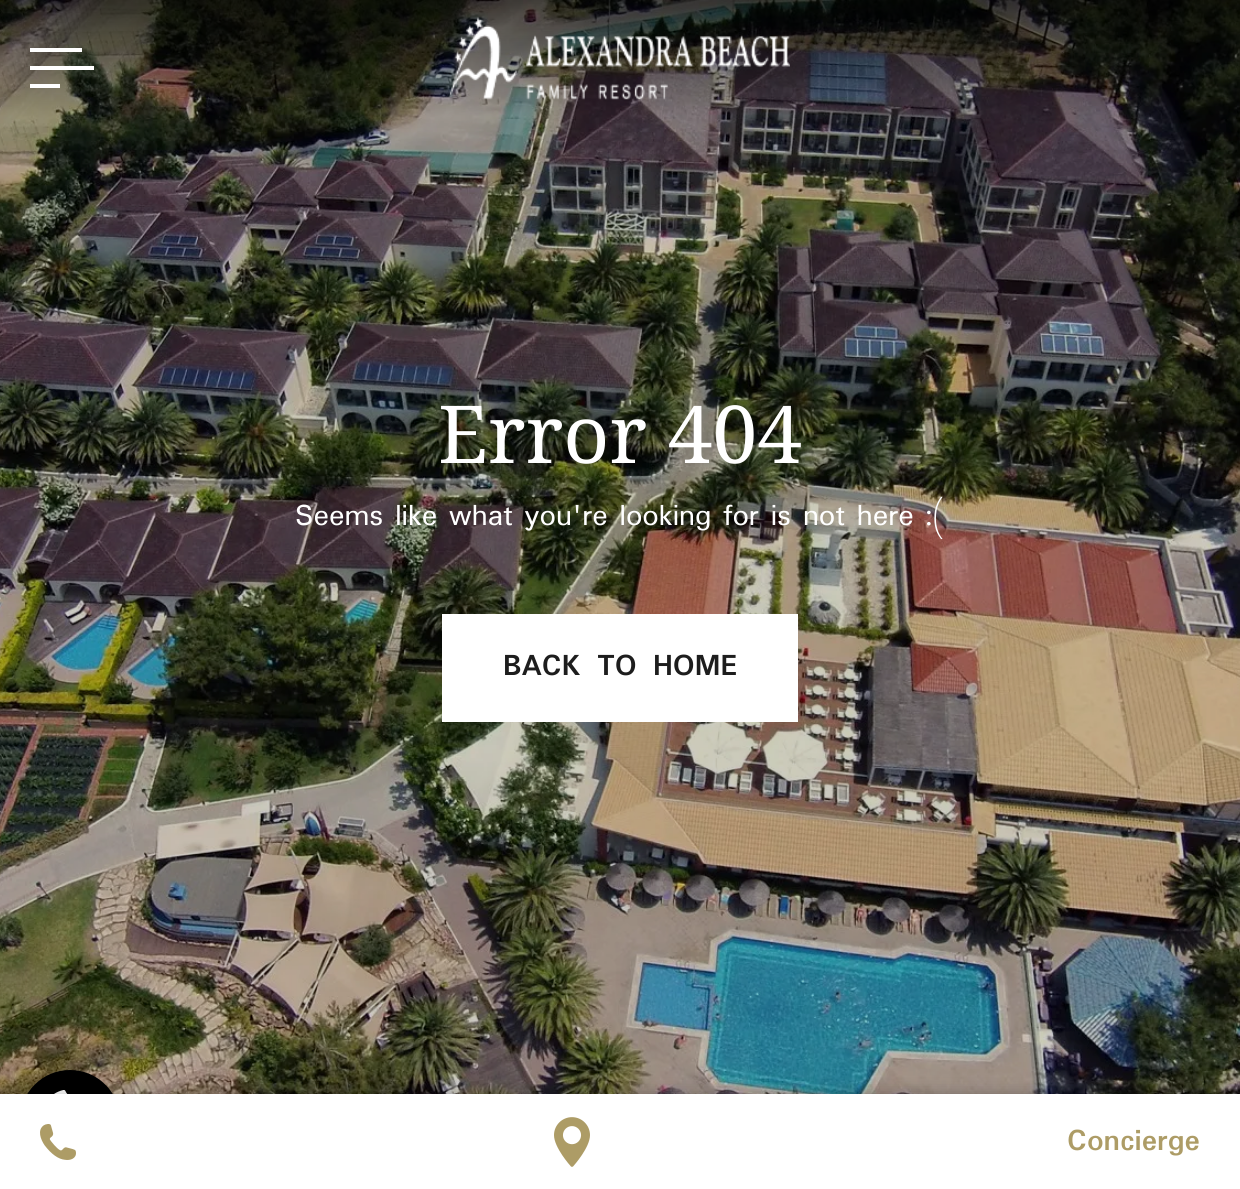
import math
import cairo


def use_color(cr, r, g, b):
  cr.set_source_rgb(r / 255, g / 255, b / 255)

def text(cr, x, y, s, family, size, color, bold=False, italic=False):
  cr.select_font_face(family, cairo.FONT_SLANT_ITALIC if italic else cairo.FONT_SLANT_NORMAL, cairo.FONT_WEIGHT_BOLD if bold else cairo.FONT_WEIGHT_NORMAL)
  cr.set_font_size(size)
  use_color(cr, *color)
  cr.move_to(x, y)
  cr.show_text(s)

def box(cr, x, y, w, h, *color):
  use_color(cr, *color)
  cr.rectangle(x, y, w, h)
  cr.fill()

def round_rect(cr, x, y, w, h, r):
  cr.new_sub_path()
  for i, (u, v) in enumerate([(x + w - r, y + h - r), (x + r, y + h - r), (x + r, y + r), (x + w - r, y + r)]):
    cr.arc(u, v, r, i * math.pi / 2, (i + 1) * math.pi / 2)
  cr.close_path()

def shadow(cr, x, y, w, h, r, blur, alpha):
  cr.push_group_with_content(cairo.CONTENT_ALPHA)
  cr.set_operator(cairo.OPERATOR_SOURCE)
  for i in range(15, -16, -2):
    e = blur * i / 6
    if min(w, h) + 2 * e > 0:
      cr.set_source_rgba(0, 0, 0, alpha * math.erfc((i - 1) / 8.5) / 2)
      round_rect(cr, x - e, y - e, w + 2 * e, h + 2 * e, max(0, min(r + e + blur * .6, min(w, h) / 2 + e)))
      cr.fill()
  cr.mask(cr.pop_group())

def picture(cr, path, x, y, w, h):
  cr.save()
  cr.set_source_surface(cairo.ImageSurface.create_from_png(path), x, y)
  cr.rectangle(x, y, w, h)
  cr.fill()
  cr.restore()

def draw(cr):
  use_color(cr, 255, 255, 255)
  cr.paint()
  picture(cr, "img_02.png", 0, 0, 1240, 1094)
  box(cr, 30, 66, 64, 4, 255, 255, 255)
  box(cr, 30, 48, 52, 4, 255, 255, 255)
  box(cr, 30, 84, 30, 4, 255, 255, 255)
  picture(cr, "img_01.png", 450, 17, 340, 83)
  box(cr, 442, 614, 356, 108, 255, 255, 255)
  use_color(cr, 0, 0, 0)
  cr.arc(70, 1120, 50, 0, 2 * math.pi)
  cr.fill()
  picture(cr, "img_03.png", 54, 1090, 14, 4)
  use_color(cr, 0, 0, 0)
  shadow(cr, 0, 1092, 1240, 96, 0, 7, 0.2)
  box(cr, 0, 1094, 1240, 95, 255, 255, 255)
  picture(cr, "img_04.png", 40, 1124, 36, 36)
  picture(cr, "img_05.png", 554, 1117, 36, 50)
  text(cr, 438, 463, "Error 404", "Noto Serif", 80, (255, 255, 255))
  text(cr, 295, 525, "Seems like what you're looking for is not here :(", "Padauk", 32, (255, 255, 255))
  text(cr, 503, 675, "BACK TO HOME", "Padauk", 32, (29, 29, 29), bold=True)
  text(cr, 1067, 1150, "Concierge", "Padauk", 32, (173, 156, 102), bold=True)


surface = cairo.ImageSurface(cairo.FORMAT_RGB24, 1240, 1189)
cr = cairo.Context(surface)
options = cairo.FontOptions()
options.set_hint_metrics(cairo.HINT_METRICS_OFF)
options.set_hint_style(cairo.HINT_STYLE_NONE)
cr.set_font_options(options)
cr.set_miter_limit(4)
draw(cr)
surface.write_to_png("out.png")
